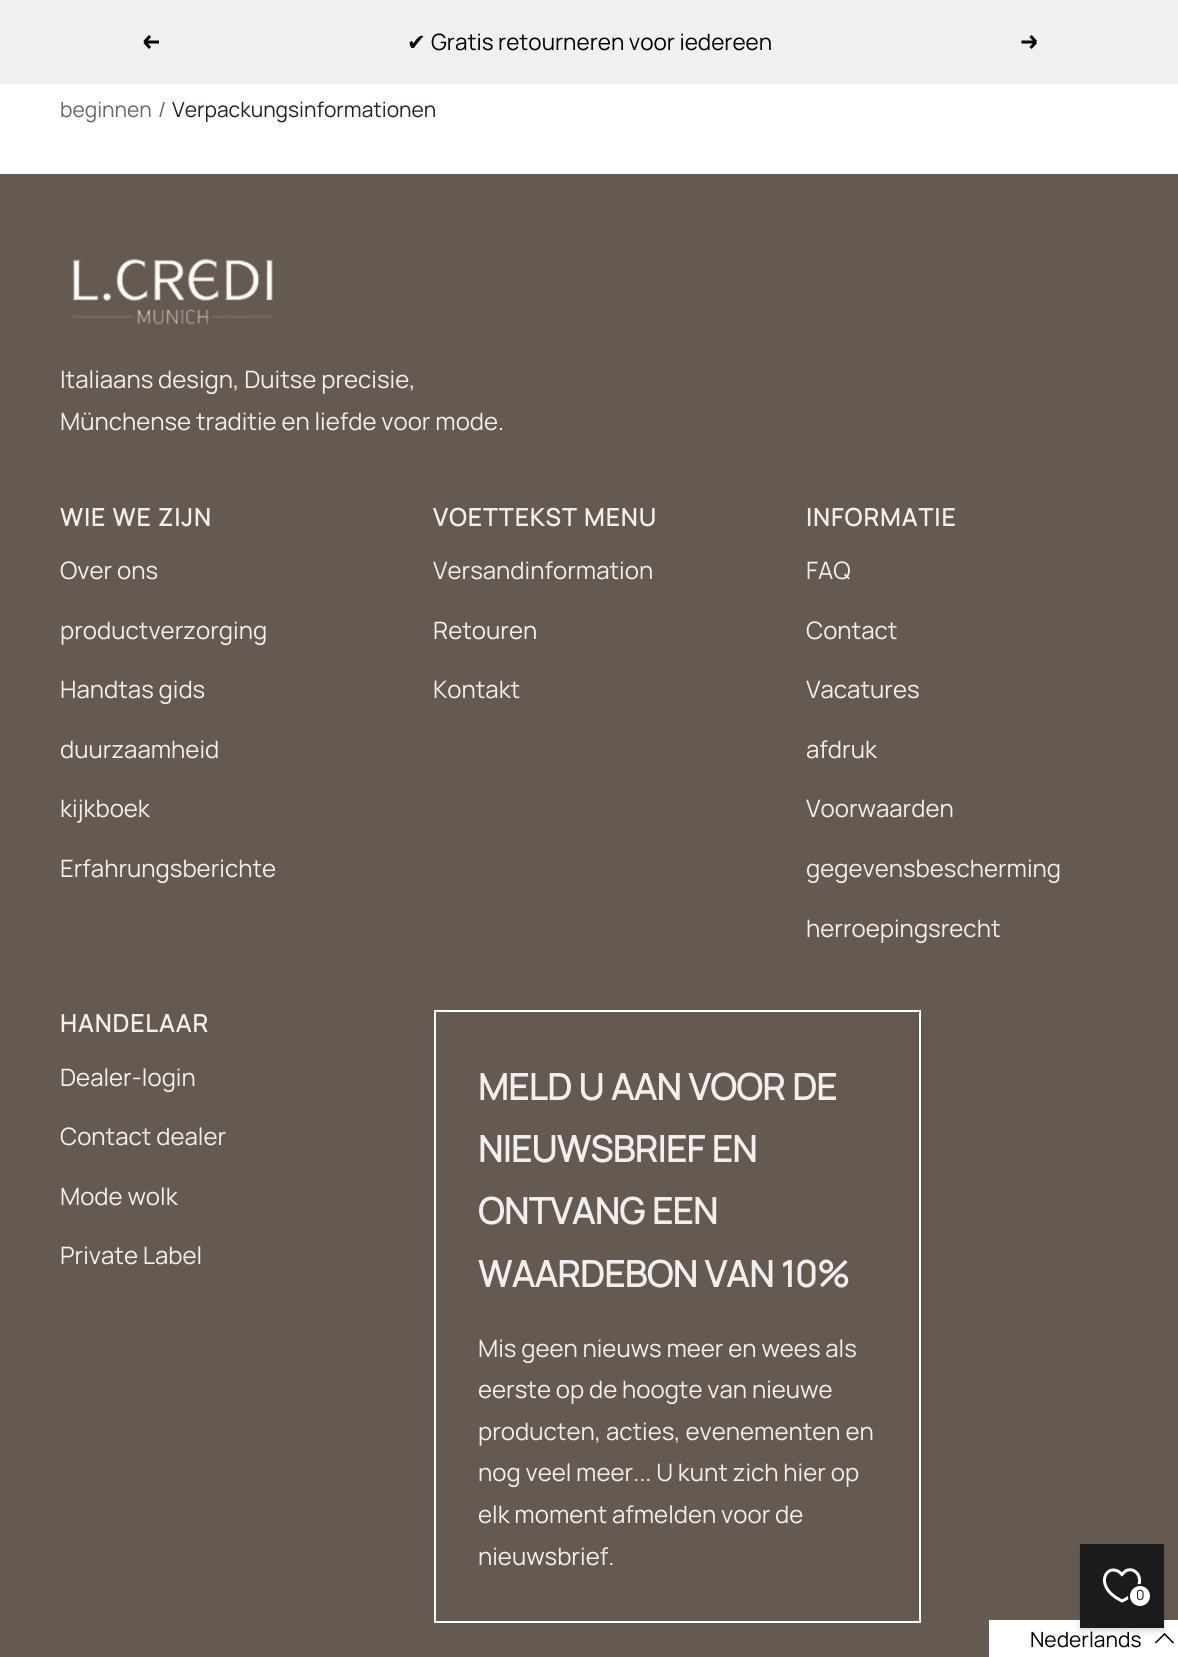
import math
import cairo


def use_color(cr, r, g, b):
  cr.set_source_rgb(r / 255, g / 255, b / 255)

def text(cr, x, y, s, family, size, color, bold=False, italic=False):
  cr.select_font_face(family, cairo.FONT_SLANT_ITALIC if italic else cairo.FONT_SLANT_NORMAL, cairo.FONT_WEIGHT_BOLD if bold else cairo.FONT_WEIGHT_NORMAL)
  cr.set_font_size(size)
  use_color(cr, *color)
  cr.move_to(x, y)
  cr.show_text(s)

def spaced_text(cr, x, y, s, letter, word):
  cr.move_to(x, y)
  for ch in s:
    cr.show_text(ch)
    cr.rel_move_to(letter + word * (ch == ' '), 0)

def box(cr, x, y, w, h, *color):
  use_color(cr, *color)
  cr.rectangle(x, y, w, h)
  cr.fill()

def round_rect(cr, x, y, w, h, r):
  cr.new_sub_path()
  for i, (u, v) in enumerate([(x + w - r, y + h - r), (x + r, y + h - r), (x + r, y + r), (x + w - r, y + r)]):
    cr.arc(u, v, r, i * math.pi / 2, (i + 1) * math.pi / 2)
  cr.close_path()

def shadow(cr, x, y, w, h, r, blur, alpha):
  cr.push_group_with_content(cairo.CONTENT_ALPHA)
  cr.set_operator(cairo.OPERATOR_SOURCE)
  for i in range(15, -16, -2):
    e = blur * i / 6
    if min(w, h) + 2 * e > 0:
      cr.set_source_rgba(0, 0, 0, alpha * math.erfc((i - 1) / 8.5) / 2)
      round_rect(cr, x - e, y - e, w + 2 * e, h + 2 * e, max(0, min(r + e + blur * .6, min(w, h) / 2 + e)))
      cr.fill()
  cr.mask(cr.pop_group())

def picture(cr, path, x, y, w, h):
  cr.save()
  cr.set_source_surface(cairo.ImageSurface.create_from_png(path), x, y)
  cr.rectangle(x, y, w, h)
  cr.fill()
  cr.restore()

def draw(cr):
  use_color(cr, 255, 255, 255)
  cr.paint()
  box(cr, 0, 0, 1178, 84, 241, 239, 239)
  cr.new_path()
  cr.move_to(159, 42)
  cr.line_to(144.5, 42)
  cr.move_to(144.5, 42)
  cr.line_to(150, 48)
  cr.move_to(144.5, 42)
  cr.line_to(150, 36)
  use_color(cr, 0, 0, 0)
  cr.set_line_width(3)
  cr.stroke()
  cr.new_path()
  cr.move_to(1021.5, 42)
  cr.line_to(1036, 42)
  cr.move_to(1036, 42)
  cr.line_to(1030.5, 48)
  cr.move_to(1036, 42)
  cr.line_to(1030.5, 36)
  cr.stroke()
  box(cr, 0, 174, 1178, 1483, 101, 90, 82)
  picture(cr, "img_01.png", 72, 258, 202, 67)
  cr.rectangle(435, 1011, 485, 611)
  use_color(cr, 255, 255, 255)
  cr.set_line_width(2)
  cr.stroke()
  box(cr, 989, 1620, 189, 37, 255, 255, 255)
  cr.new_path()
  cr.move_to(1173.5, 1643)
  cr.line_to(1164.5, 1634)
  cr.line_to(1155.5, 1643)
  use_color(cr, 0, 0, 0)
  cr.set_line_width(1.5)
  cr.stroke()
  use_color(cr, 0, 0, 0)
  shadow(cr, 1080, 1547, 84, 84, 0, 3, 0.15)
  box(cr, 1080, 1544, 84, 84, 28, 27, 27)
  cr.new_path()
  cr.move_to(1122, 1601)
  cr.curve_to(1115, 1597.5, 1107, 1592, 1105, 1584)
  cr.curve_to(1102.5, 1576, 1108.5, 1567, 1117.5, 1571)
  cr.curve_to(1119, 1571.5, 1120.5, 1573, 1122, 1574.5)
  cr.curve_to(1123.5, 1573, 1124.5, 1571.5, 1126.5, 1570.5)
  cr.curve_to(1134, 1567.5, 1140.5, 1574.5, 1139.5, 1582)
  cr.curve_to(1138.5, 1591, 1129.5, 1597.5, 1122, 1601)
  cr.close_path()
  use_color(cr, 255, 255, 255)
  cr.set_line_width(3)
  cr.stroke()
  cr.arc(1140, 1596, 11, 0, 2 * math.pi)
  cr.fill_preserve()
  use_color(cr, 28, 27, 27)
  cr.set_line_width(2)
  cr.stroke()
  text(cr, 407, 50, "✔", "DejaVu Sans", 22.5, (0, 0, 0))
  text(cr, 431, 50, "Gratis retourneren voor iedereen", "Manrope ExtraLight", 22.5, (0, 0, 0))
  text(cr, 60, 117, "beginnen", "Manrope ExtraLight", 21, (105, 101, 99))
  text(cr, 158, 117, "/", "Manrope ExtraLight", 21, (105, 101, 99))
  text(cr, 172, 117, "Verpackungsinformationen", "Manrope ExtraLight", 21, (41, 35, 32))
  text(cr, 60, 388, "Italiaans design, Duitse precisie,", "Manrope ExtraLight", 24, (241, 239, 239))
  text(cr, 60, 430, "Münchense traditie en liefde voor mode.", "Manrope ExtraLight", 24, (241, 239, 239))
  cr.select_font_face("Manrope", cairo.FONT_SLANT_NORMAL, cairo.FONT_WEIGHT_BOLD)
  spaced_text(cr, 60, 526, "WIE WE ZIJN", 1.5, 0)
  text(cr, 60, 579, "Over ons", "Manrope ExtraLight", 24, (241, 239, 239))
  text(cr, 60, 639, "productverzorging", "Manrope ExtraLight", 24, (241, 239, 239))
  text(cr, 60, 698, "Handtas gids", "Manrope ExtraLight", 24, (241, 239, 239))
  text(cr, 60, 758, "duurzaamheid", "Manrope ExtraLight", 24, (241, 239, 239))
  text(cr, 60, 817, "kijkboek", "Manrope ExtraLight", 24, (241, 239, 239))
  text(cr, 60, 877, "Erfahrungsberichte", "Manrope ExtraLight", 24, (241, 239, 239))
  cr.select_font_face("Manrope", cairo.FONT_SLANT_NORMAL, cairo.FONT_WEIGHT_BOLD)
  spaced_text(cr, 433, 526, "VOETTEKST MENU", 1.5, 0)
  text(cr, 433, 579, "Versandinformation", "Manrope ExtraLight", 24, (241, 239, 239))
  text(cr, 433, 639, "Retouren", "Manrope ExtraLight", 24, (241, 239, 239))
  text(cr, 433, 698, "Kontakt", "Manrope ExtraLight", 24, (241, 239, 239))
  cr.select_font_face("Manrope", cairo.FONT_SLANT_NORMAL, cairo.FONT_WEIGHT_BOLD)
  spaced_text(cr, 806, 526, "INFORMATIE", 1.5, 0)
  text(cr, 806, 579, "FAQ", "Manrope ExtraLight", 24, (241, 239, 239))
  text(cr, 806, 639, "Contact", "Manrope ExtraLight", 24, (241, 239, 239))
  text(cr, 806, 698, "Vacatures", "Manrope ExtraLight", 24, (241, 239, 239))
  text(cr, 806, 758, "afdruk", "Manrope ExtraLight", 24, (241, 239, 239))
  text(cr, 806, 817, "Voorwaarden", "Manrope ExtraLight", 24, (241, 239, 239))
  text(cr, 806, 877, "gegevensbescherming", "Manrope ExtraLight", 24, (241, 239, 239))
  text(cr, 806, 937, "herroepingsrecht", "Manrope ExtraLight", 24, (241, 239, 239))
  cr.select_font_face("Manrope", cairo.FONT_SLANT_NORMAL, cairo.FONT_WEIGHT_BOLD)
  spaced_text(cr, 60, 1032, "HANDELAAR", 1.5, 0)
  text(cr, 60, 1086, "Dealer-login", "Manrope ExtraLight", 24, (241, 239, 239))
  text(cr, 60, 1145, "Contact dealer", "Manrope ExtraLight", 24, (241, 239, 239))
  text(cr, 60, 1205, "Mode wolk", "Manrope ExtraLight", 24, (241, 239, 239))
  text(cr, 60, 1264, "Private Label", "Manrope ExtraLight", 24, (241, 239, 239))
  text(cr, 478, 1100, "MELD U AAN VOOR DE", "Manrope", 36, (241, 239, 239), bold=True)
  text(cr, 478, 1162, "NIEUWSBRIEF EN", "Manrope", 36, (241, 239, 239), bold=True)
  text(cr, 478, 1224, "ONTVANG EEN", "Manrope", 36, (241, 239, 239), bold=True)
  text(cr, 478, 1287, "WAARDEBON VAN 10%", "Manrope", 36, (241, 239, 239), bold=True)
  text(cr, 478, 1357, "Mis geen nieuws meer en wees als", "Manrope ExtraLight", 24, (241, 239, 239))
  text(cr, 478, 1398, "eerste op de hoogte van nieuwe", "Manrope ExtraLight", 24, (241, 239, 239))
  text(cr, 478, 1440, "producten, acties, evenementen en", "Manrope ExtraLight", 24, (241, 239, 239))
  text(cr, 478, 1481, "nog veel meer... U kunt zich hier op", "Manrope ExtraLight", 24, (241, 239, 239))
  text(cr, 478, 1523, "elk moment afmelden voor de", "Manrope ExtraLight", 24, (241, 239, 239))
  text(cr, 478, 1565, "nieuwsbrief.", "Manrope ExtraLight", 24, (241, 239, 239))
  text(cr, 1136, 1600, "0", "Manrope ExtraLight", 14, (28, 27, 27))
  text(cr, 1030, 1647, "Nederlands", "Manrope ExtraLight", 21, (0, 0, 0))


surface = cairo.ImageSurface(cairo.FORMAT_RGB24, 1178, 1657)
cr = cairo.Context(surface)
options = cairo.FontOptions()
options.set_hint_metrics(cairo.HINT_METRICS_OFF)
options.set_hint_style(cairo.HINT_STYLE_NONE)
cr.set_font_options(options)
cr.set_miter_limit(4)
draw(cr)
surface.write_to_png("out.png")
